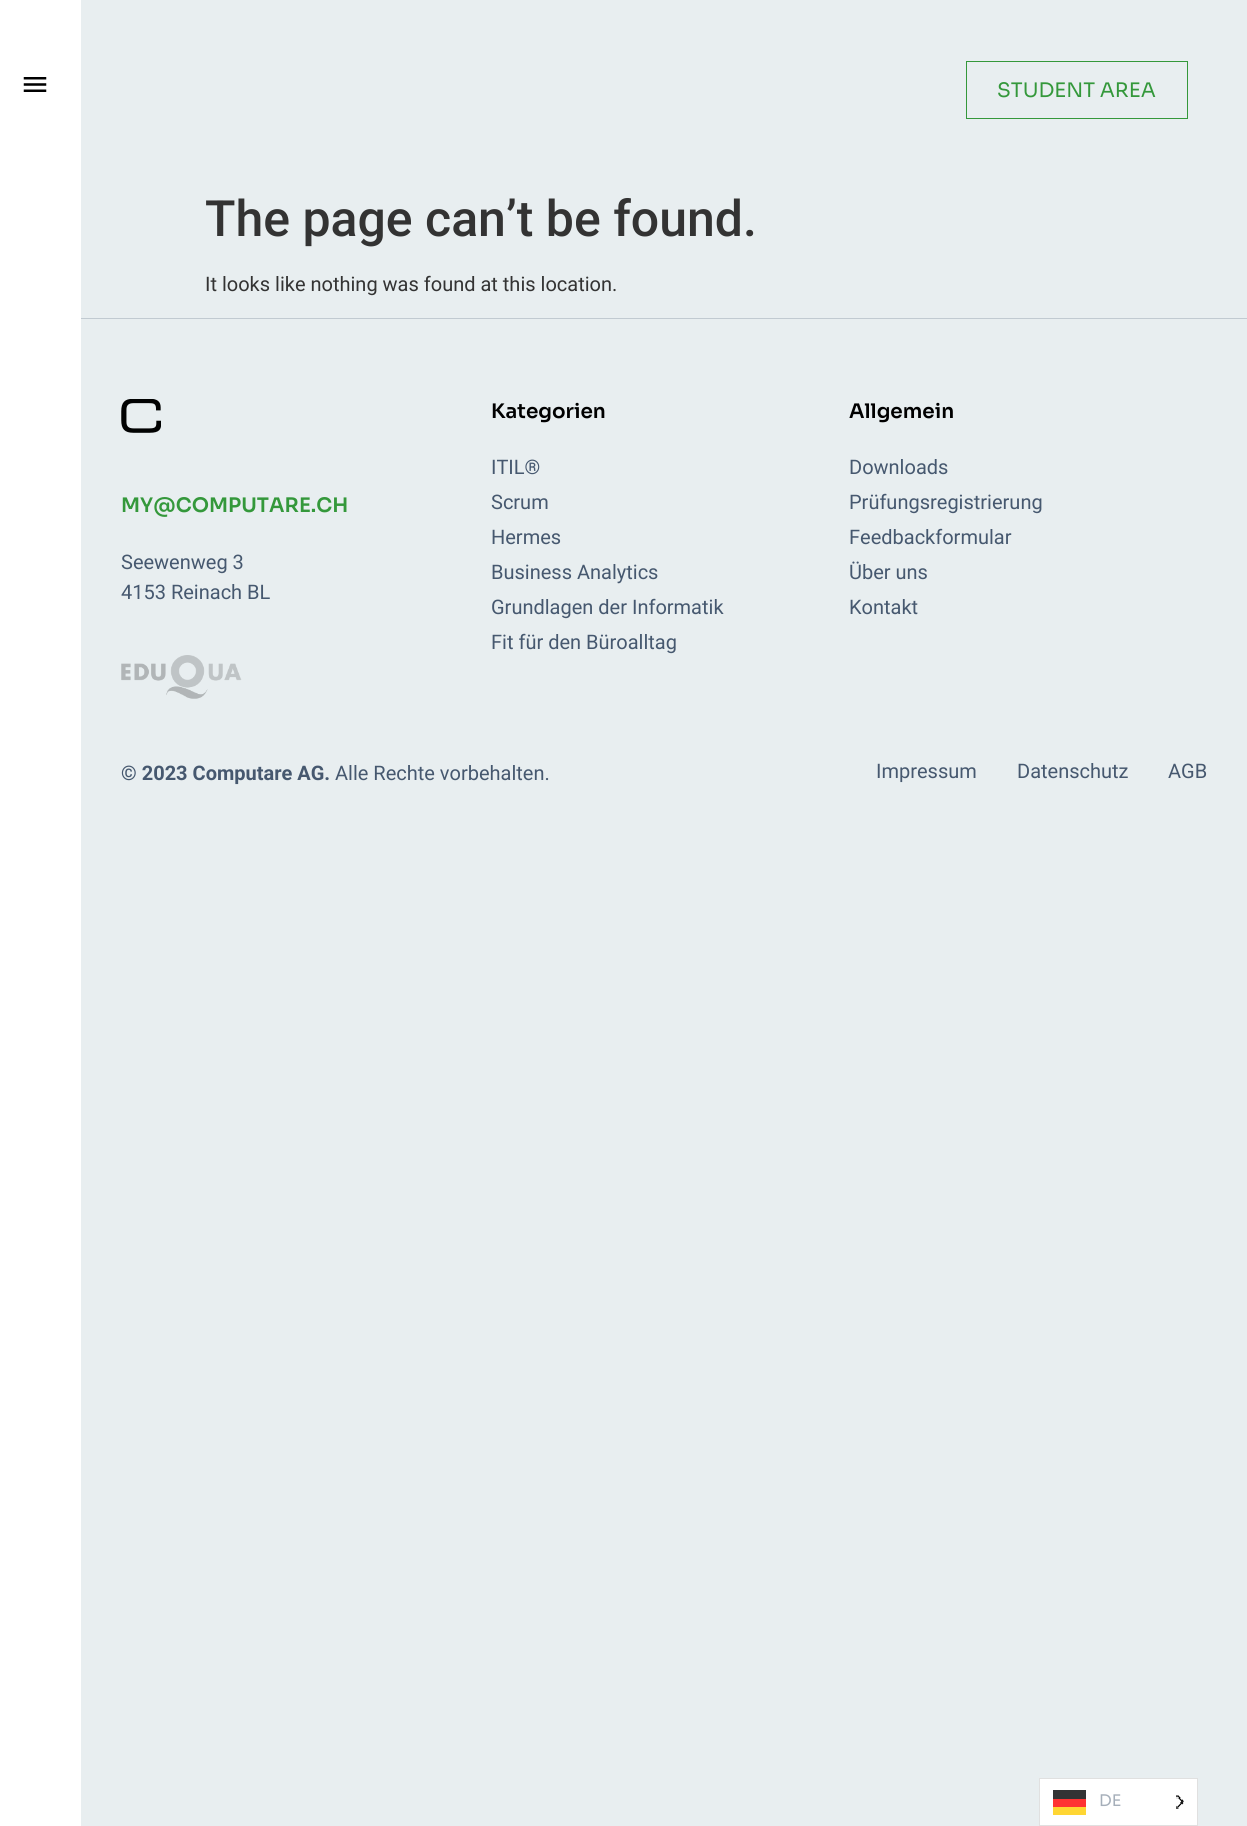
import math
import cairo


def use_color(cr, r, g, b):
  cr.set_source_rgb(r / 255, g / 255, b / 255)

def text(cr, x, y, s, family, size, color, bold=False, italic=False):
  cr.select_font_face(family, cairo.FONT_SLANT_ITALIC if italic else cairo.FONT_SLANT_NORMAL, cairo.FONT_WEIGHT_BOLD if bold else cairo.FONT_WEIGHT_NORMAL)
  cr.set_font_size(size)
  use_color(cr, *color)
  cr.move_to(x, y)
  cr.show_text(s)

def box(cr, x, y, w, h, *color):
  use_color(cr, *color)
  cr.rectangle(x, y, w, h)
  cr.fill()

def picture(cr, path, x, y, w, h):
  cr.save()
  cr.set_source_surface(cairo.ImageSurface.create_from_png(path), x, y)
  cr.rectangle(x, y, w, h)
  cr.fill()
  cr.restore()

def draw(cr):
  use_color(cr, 232, 238, 240)
  cr.paint()
  box(cr, 0, 0, 81, 1826, 255, 255, 255)
  picture(cr, "img_01.png", 23, 77, 24, 15)
  cr.rectangle(966.5, 61.5, 221, 57)
  use_color(cr, 52, 152, 59)
  cr.set_line_width(1)
  cr.stroke()
  box(cr, 81, 318, 1166, 1, 193, 202, 209)
  picture(cr, "img_02.png", 121, 399, 40, 34)
  picture(cr, "img_03.png", 121, 655, 121, 44)
  use_color(cr, 255, 255, 255)
  cr.rectangle(1039.5, 1778.5, 158, 47)
  cr.fill_preserve()
  use_color(cr, 224, 224, 224)
  cr.stroke()
  box(cr, 1053, 1807, 33, 8, 255, 214, 51)
  box(cr, 1053, 1790, 33, 9, 51, 51, 52)
  box(cr, 1053, 1799, 33, 8, 255, 51, 51)
  picture(cr, "img_04.png", 1176, 1795, 8, 14)
  text(cr, 997, 97, "STUDENT AREA", "Sora", 20, (52, 152, 59))
  text(cr, 205, 236, "The page can’t be found.", "Roboto Medium", 50, (51, 51, 51))
  text(cr, 205, 291, "It looks like nothing was found at this location.", "Roboto", 20, (51, 51, 51))
  text(cr, 121, 512, "MY@COMPUTARE.CH", "Sora SemiBold", 20, (52, 152, 59))
  text(cr, 121, 569, "Seewenweg 3", "Roboto", 20, (70, 88, 111))
  text(cr, 121, 599, "4153 Reinach BL", "Roboto", 20, (70, 88, 111))
  text(cr, 491, 418, "Kategorien", "Sora SemiBold", 20, (0, 0, 0))
  text(cr, 491, 474, "ITIL®", "Roboto", 20, (70, 88, 111))
  text(cr, 491, 509, "Scrum", "Roboto", 20, (70, 88, 111))
  text(cr, 491, 544, "Hermes", "Roboto", 20, (70, 88, 111))
  text(cr, 491, 579, "Business Analytics", "Roboto", 20, (70, 88, 111))
  text(cr, 491, 614, "Grundlagen der Informatik", "Roboto", 20, (70, 88, 111))
  text(cr, 491, 649, "Fit für den Büroalltag", "Roboto", 20, (70, 88, 111))
  text(cr, 849, 418, "Allgemein", "Sora SemiBold", 20, (0, 0, 0))
  text(cr, 849, 474, "Downloads", "Roboto", 20, (70, 88, 111))
  text(cr, 849, 509, "Prüfungsregistrierung", "Roboto", 20, (70, 88, 111))
  text(cr, 849, 544, "Feedbackformular", "Roboto", 20, (70, 88, 111))
  text(cr, 849, 579, "Über uns", "Roboto", 20, (70, 88, 111))
  text(cr, 849, 614, "Kontakt", "Roboto", 20, (70, 88, 111))
  text(cr, 121, 780, "© 2023 Computare AG.", "Roboto", 20, (70, 88, 111), bold=True)
  text(cr, 335, 780, "Alle Rechte vorbehalten.", "Roboto", 20, (70, 88, 111))
  text(cr, 876, 778, "Impressum", "Roboto", 20, (70, 88, 111))
  text(cr, 1017, 778, "Datenschutz", "Roboto", 20, (70, 88, 111))
  text(cr, 1168, 778, "AGB", "Roboto", 20, (70, 88, 111))
  text(cr, 1099, 1806, "DE", "Sora", 16, (166, 175, 186))


surface = cairo.ImageSurface(cairo.FORMAT_RGB24, 1247, 1826)
cr = cairo.Context(surface)
options = cairo.FontOptions()
options.set_hint_metrics(cairo.HINT_METRICS_OFF)
options.set_hint_style(cairo.HINT_STYLE_NONE)
cr.set_font_options(options)
cr.set_miter_limit(4)
draw(cr)
surface.write_to_png("out.png")
